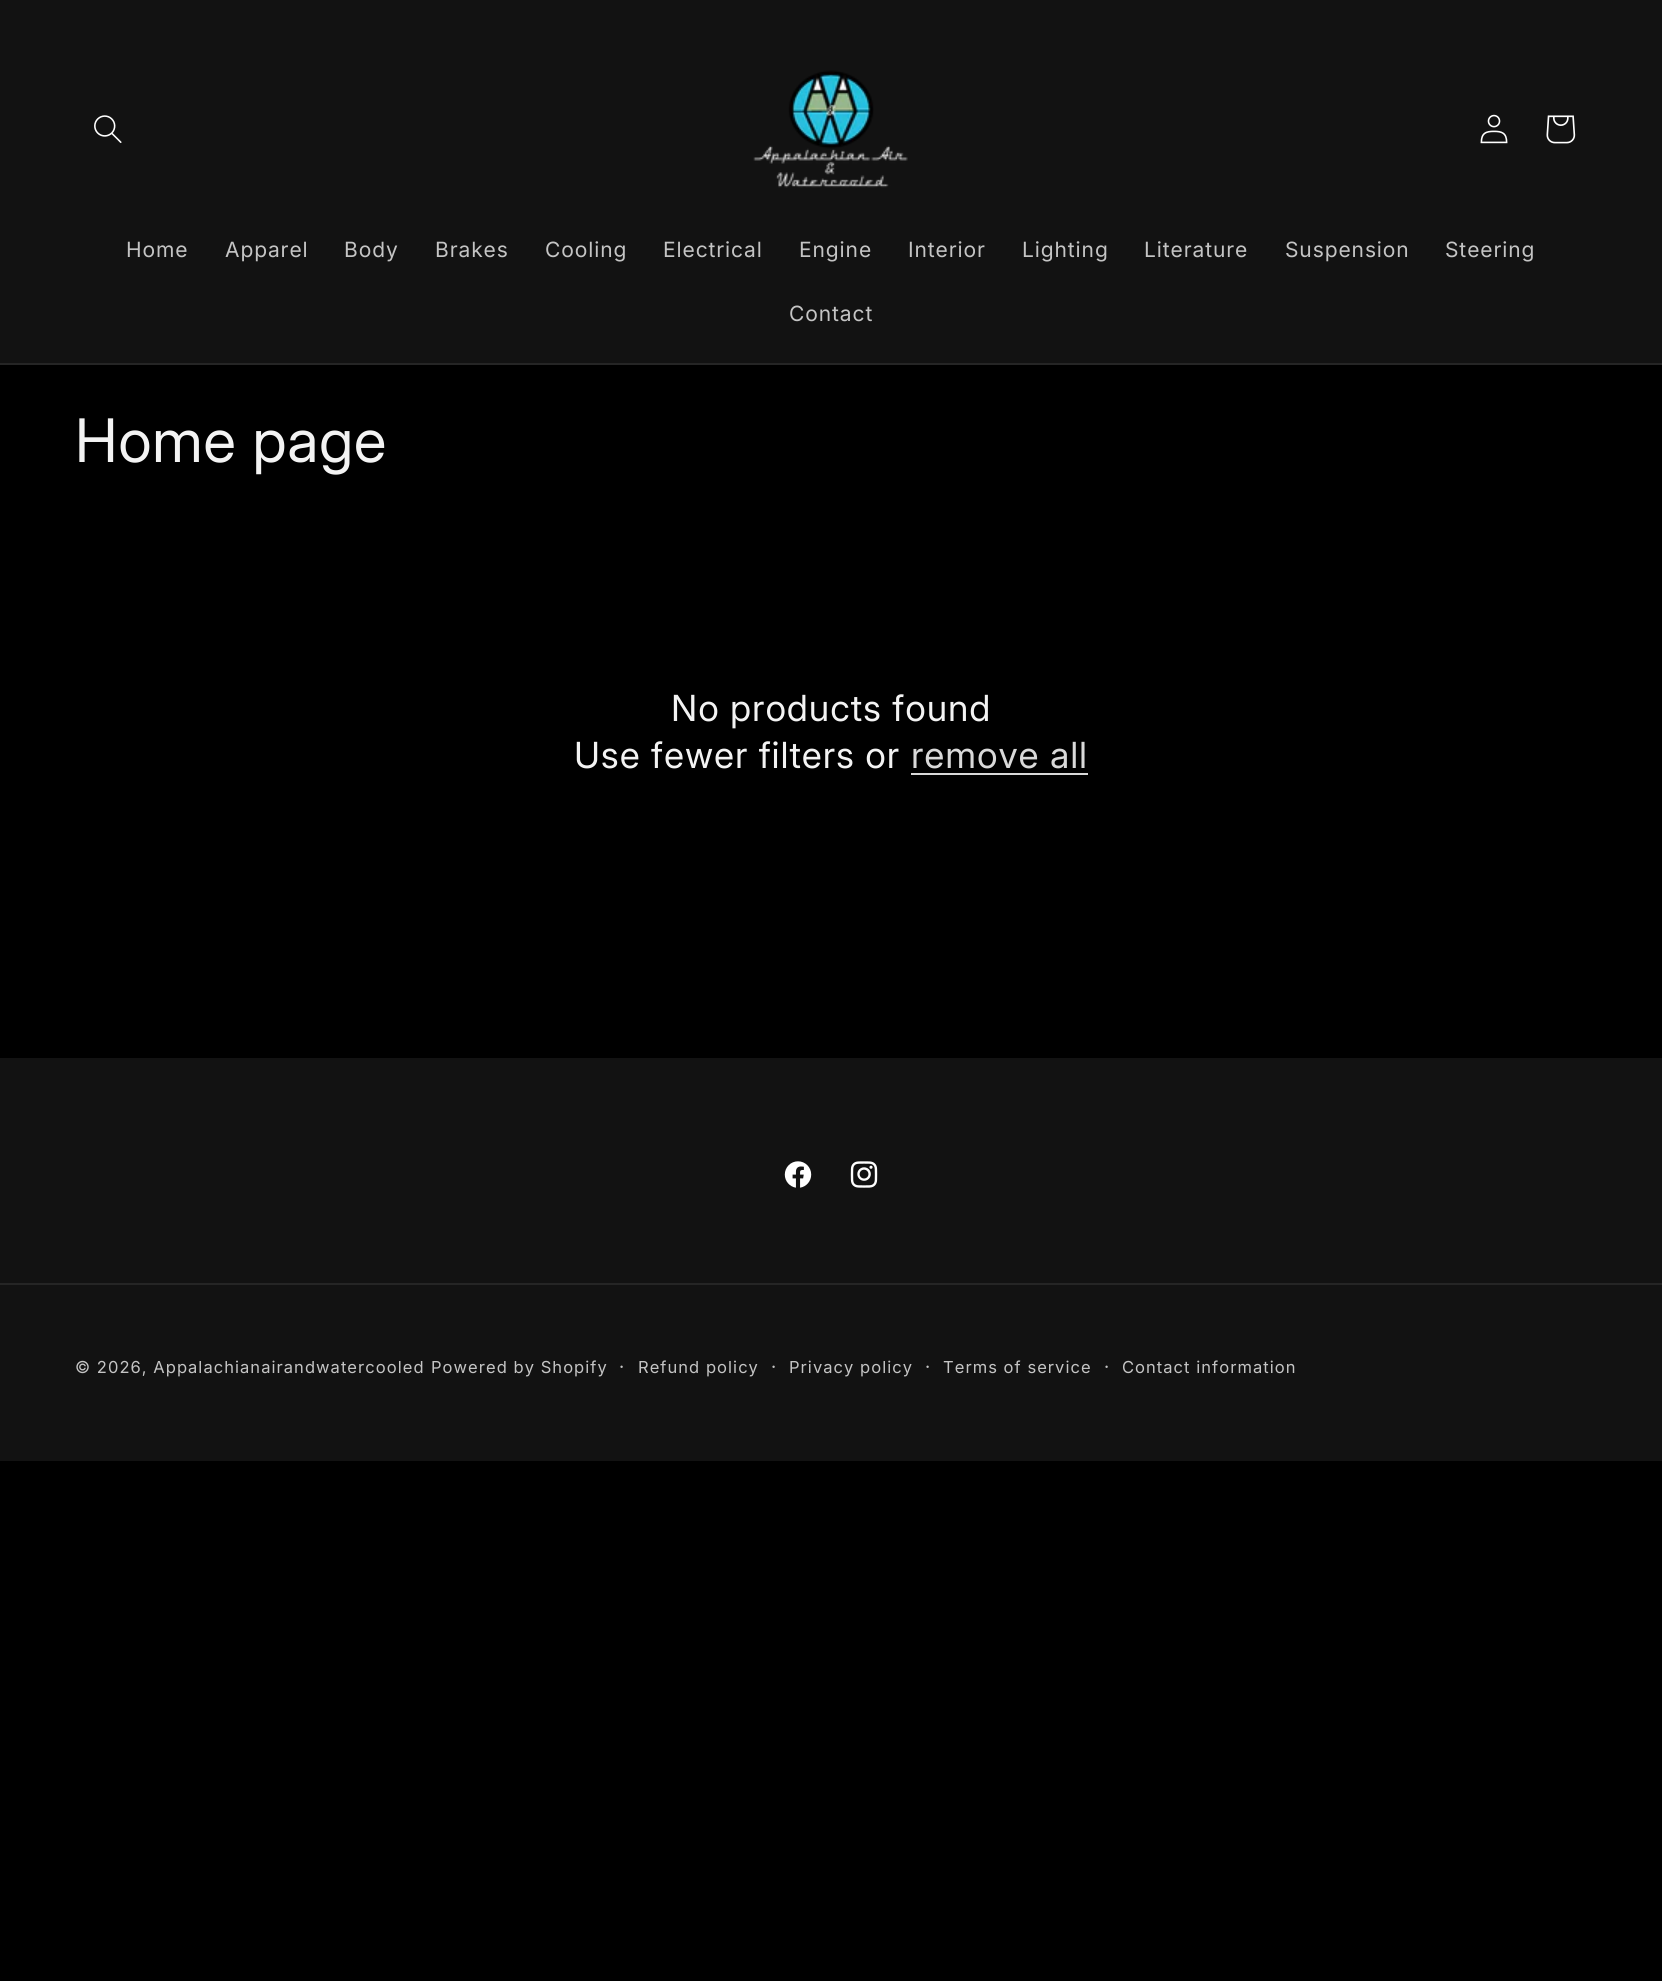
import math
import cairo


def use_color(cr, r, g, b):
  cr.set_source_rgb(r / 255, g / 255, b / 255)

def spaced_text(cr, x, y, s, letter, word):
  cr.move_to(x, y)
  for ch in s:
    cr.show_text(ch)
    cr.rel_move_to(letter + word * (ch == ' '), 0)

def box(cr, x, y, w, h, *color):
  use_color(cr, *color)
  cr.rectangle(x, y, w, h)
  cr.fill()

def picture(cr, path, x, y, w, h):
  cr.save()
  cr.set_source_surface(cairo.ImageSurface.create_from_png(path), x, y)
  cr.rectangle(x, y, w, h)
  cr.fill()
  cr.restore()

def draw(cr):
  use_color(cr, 0, 0, 0)
  cr.paint()
  box(cr, 0, 0, 1662, 363, 18, 18, 18)
  box(cr, 0, 363, 1662, 2, 37, 37, 37)
  picture(cr, "img_01.png", 94, 115, 28, 28)
  picture(cr, "img_02.png", 753, 70, 155, 118)
  picture(cr, "img_03.png", 1480, 114, 28, 30)
  picture(cr, "img_04.png", 1546, 115, 30, 29)
  box(cr, 911, 773, 177, 2, 217, 217, 217)
  box(cr, 0, 1058, 1662, 403, 18, 18, 18)
  picture(cr, "img_05.png", 784, 1161, 28, 27)
  picture(cr, "img_06.png", 850, 1161, 28, 27)
  box(cr, 0, 1283, 1662, 2, 37, 37, 37)
  cr.select_font_face("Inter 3")
  cr.set_font_size(21)
  use_color(cr, 196, 196, 196)
  spaced_text(cr, 126, 257, "Home", 0.9, 0)
  spaced_text(cr, 225, 257, "Apparel", 0.9, 0)
  spaced_text(cr, 344, 257, "Body", 0.9, 0)
  spaced_text(cr, 435, 257, "Brakes", 0.9, 0)
  spaced_text(cr, 545, 257, "Cooling", 0.9, 0)
  spaced_text(cr, 663, 257, "Electrical", 0.9, 0)
  spaced_text(cr, 799, 257, "Engine", 0.9, 0)
  spaced_text(cr, 908, 257, "Interior", 0.9, 0)
  spaced_text(cr, 1022, 257, "Lighting", 0.9, 0)
  spaced_text(cr, 1144, 257, "Literature", 0.9, 0)
  spaced_text(cr, 1285, 257, "Suspension", 0.9, 0)
  spaced_text(cr, 1445, 257, "Steering", 0.9, 0)
  spaced_text(cr, 789, 321, "Contact", 0.9, 0)
  cr.select_font_face("Inter")
  cr.set_font_size(60)
  use_color(cr, 243, 243, 243)
  spaced_text(cr, 75, 462, "Home page", 0.9, 0)
  cr.select_font_face("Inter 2")
  cr.set_font_size(36)
  spaced_text(cr, 671, 721, "No products found", 0.9, 0)
  spaced_text(cr, 574, 768, "Use fewer filters or", 0.9, 0)
  use_color(cr, 217, 217, 217)
  spaced_text(cr, 911, 768, "remove all", 0.9, 0)
  cr.select_font_face("Inter 3")
  cr.set_font_size(16.5)
  use_color(cr, 196, 196, 196)
  spaced_text(cr, 75, 1373, "© 2026, Appalachianairandwatercooled", 1.05, 0)
  spaced_text(cr, 431, 1373, "Powered by Shopify", 1.05, 0)
  cr.set_font_size(18)
  spaced_text(cr, 619, 1373, "·", 1.05, 0)
  cr.set_font_size(16.5)
  spaced_text(cr, 638, 1373, "Refund policy", 1.05, 0)
  cr.set_font_size(18)
  spaced_text(cr, 771, 1373, "·", 1.05, 0)
  cr.set_font_size(16.5)
  spaced_text(cr, 789, 1373, "Privacy policy", 1.05, 0)
  cr.set_font_size(18)
  spaced_text(cr, 925, 1373, "·", 1.05, 0)
  cr.set_font_size(16.5)
  spaced_text(cr, 943, 1373, "Terms of service", 1.05, 0)
  cr.set_font_size(18)
  spaced_text(cr, 1104, 1373, "·", 1.05, 0)
  cr.set_font_size(16.5)
  spaced_text(cr, 1122, 1373, "Contact information", 1.05, 0)


surface = cairo.ImageSurface(cairo.FORMAT_RGB24, 1662, 1981)
cr = cairo.Context(surface)
options = cairo.FontOptions()
options.set_hint_metrics(cairo.HINT_METRICS_OFF)
options.set_hint_style(cairo.HINT_STYLE_NONE)
cr.set_font_options(options)
cr.set_miter_limit(4)
draw(cr)
surface.write_to_png("out.png")
